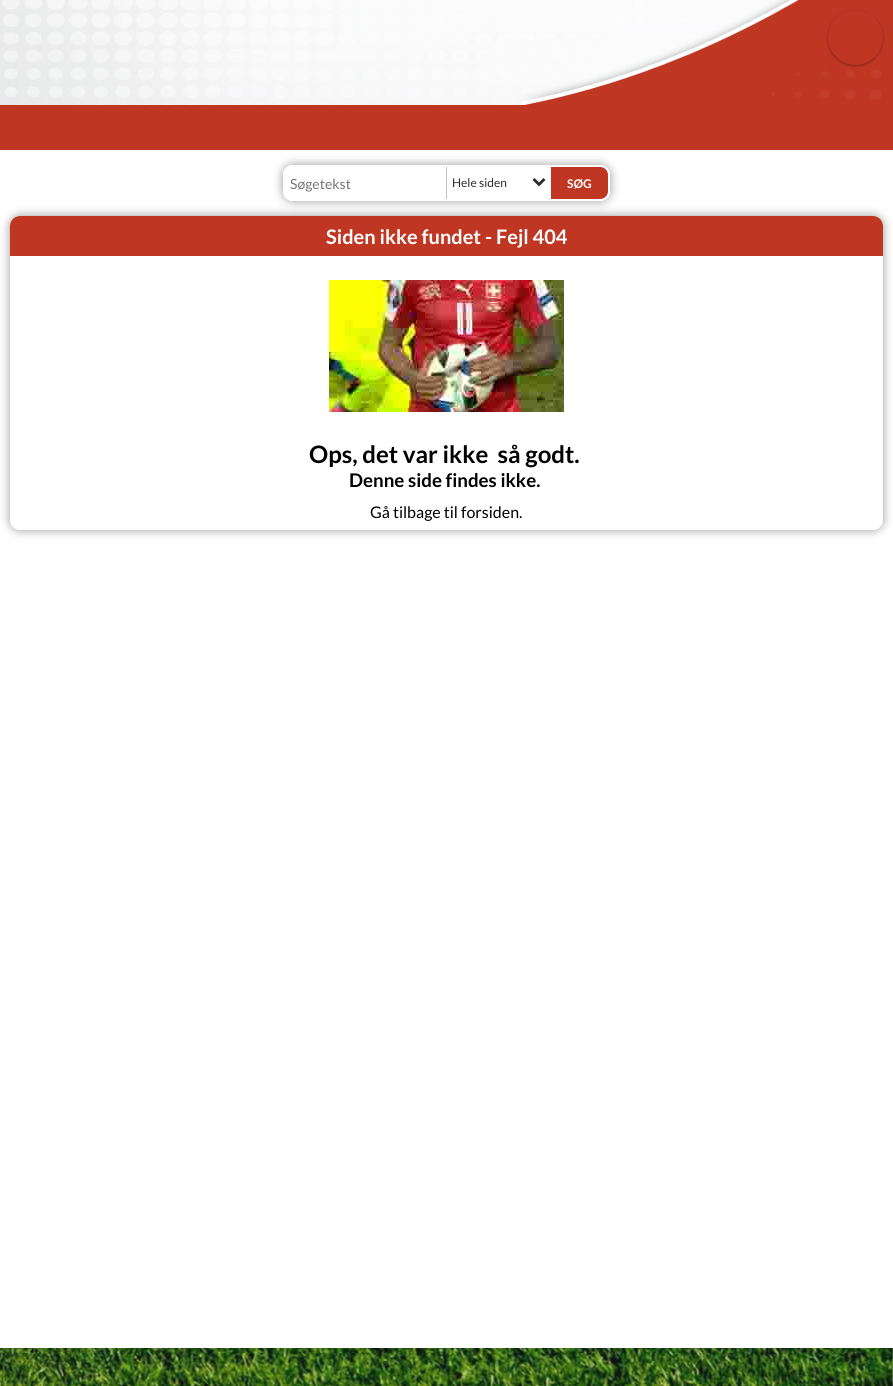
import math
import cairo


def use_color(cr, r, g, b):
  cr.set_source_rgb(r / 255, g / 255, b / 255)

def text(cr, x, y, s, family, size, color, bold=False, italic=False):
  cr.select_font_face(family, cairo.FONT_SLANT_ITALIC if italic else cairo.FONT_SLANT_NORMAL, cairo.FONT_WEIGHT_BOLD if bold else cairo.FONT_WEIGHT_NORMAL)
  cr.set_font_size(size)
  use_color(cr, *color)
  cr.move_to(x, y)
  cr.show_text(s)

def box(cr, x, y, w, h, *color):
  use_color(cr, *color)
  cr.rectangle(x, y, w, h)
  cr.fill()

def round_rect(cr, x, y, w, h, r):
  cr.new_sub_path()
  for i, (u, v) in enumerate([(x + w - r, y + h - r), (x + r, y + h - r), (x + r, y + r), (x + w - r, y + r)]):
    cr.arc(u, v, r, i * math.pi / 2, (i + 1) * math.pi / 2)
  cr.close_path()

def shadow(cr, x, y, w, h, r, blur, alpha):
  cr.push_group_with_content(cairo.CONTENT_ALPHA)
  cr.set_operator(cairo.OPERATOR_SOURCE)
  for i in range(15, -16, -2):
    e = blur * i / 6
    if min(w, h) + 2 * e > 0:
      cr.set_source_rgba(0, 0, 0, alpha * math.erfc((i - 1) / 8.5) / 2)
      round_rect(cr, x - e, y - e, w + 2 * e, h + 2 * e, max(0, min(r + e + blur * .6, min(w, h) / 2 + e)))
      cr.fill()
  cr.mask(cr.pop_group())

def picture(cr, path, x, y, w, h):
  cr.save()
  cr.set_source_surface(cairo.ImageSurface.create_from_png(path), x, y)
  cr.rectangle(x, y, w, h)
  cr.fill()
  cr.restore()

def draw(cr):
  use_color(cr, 255, 255, 255)
  cr.paint()
  use_color(cr, 48, 48, 48)
  shadow(cr, 10, 216, 873, 314, 10, 5, 0.5)
  use_color(cr, 255, 255, 255)
  round_rect(cr, 10, 216, 873, 314, 10)
  cr.fill()
  use_color(cr, 191, 54, 35)
  cr.new_path()
  cr.move_to(20, 216)
  cr.line_to(873, 216)
  cr.curve_to(878.5, 216, 883, 220.5, 883, 226)
  cr.line_to(883, 256)
  cr.line_to(10, 256)
  cr.line_to(10, 226)
  cr.curve_to(10, 220.5, 14.5, 216, 20, 216)
  cr.close_path()
  cr.fill()
  cr.save()
  cr.set_fill_rule(cairo.FILL_RULE_EVEN_ODD)
  cr.new_path()
  cr.move_to(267, 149)
  cr.line_to(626, 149)
  cr.line_to(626, 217)
  cr.line_to(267, 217)
  cr.close_path()
  cr.move_to(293, 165)
  cr.line_to(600, 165)
  cr.curve_to(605.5, 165, 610, 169.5, 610, 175)
  cr.line_to(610, 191)
  cr.curve_to(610, 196.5, 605.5, 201, 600, 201)
  cr.line_to(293, 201)
  cr.curve_to(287.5, 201, 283, 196.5, 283, 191)
  cr.line_to(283, 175)
  cr.curve_to(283, 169.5, 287.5, 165, 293, 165)
  cr.close_path()
  cr.clip()
  use_color(cr, 48, 48, 48)
  shadow(cr, 283, 165, 327, 36, 10, 5, 0.5)
  cr.restore()
  box(cr, 0, 0, 893, 150, 191, 54, 35)
  picture(cr, "img_01.png", 0, 0, 882, 105)
  use_color(cr, 0, 0, 0)
  shadow(cr, 828, 11, 55, 55, 27.5, 1, 0.24)
  shadow(cr, 828, 11, 55, 55, 27.5, 1.5, 0.12)
  use_color(cr, 191, 54, 35)
  cr.arc(855.5, 37.5, 27.5, 0, 2 * math.pi)
  cr.fill()
  round_rect(cr, 284, 166, 325, 34, 9)
  use_color(cr, 255, 255, 255)
  cr.stroke()
  box(cr, 446, 167, 1, 32, 194, 194, 194)
  picture(cr, "img_02.png", 532, 178, 14, 9)
  use_color(cr, 191, 54, 35)
  cr.new_path()
  cr.move_to(551, 167)
  cr.line_to(600, 167)
  cr.curve_to(604.5, 167, 608, 170.5, 608, 175)
  cr.line_to(608, 191)
  cr.curve_to(608, 195.5, 604.5, 199, 600, 199)
  cr.line_to(551, 199)
  cr.close_path()
  cr.fill()
  picture(cr, "img_03.png", 329, 280, 235, 132)
  picture(cr, "img_04.png", 0, 1348, 893, 38)
  cr.set_source_rgba(0.2, 0.2, 0.2, 0.2)
  cr.rectangle(0, 1348, 893, 38)
  cr.fill()
  text(cr, 290, 189, "Søgetekst", "Lato", 14, (117, 117, 117))
  text(cr, 452, 187, "Hele siden", "Lato", 12, (44, 44, 44))
  text(cr, 567, 188, "SØG", "Lato", 12, (255, 255, 255), bold=True)
  text(cr, 326, 244, "Siden ikke fundet - Fejl 404", "Lato", 20, (255, 255, 255), bold=True)
  text(cr, 309, 463, "Ops, det var ikke  så godt.", "Lato", 24, (0, 0, 0), bold=True)
  text(cr, 349, 487, "Denne side findes ikke.", "Lato", 18.75, (0, 0, 0), bold=True)
  text(cr, 370, 518, "Gå tilbage til forsiden", "Lato", 16, (0, 0, 0))
  text(cr, 519, 518, ".", "Lato", 16, (0, 0, 0))


surface = cairo.ImageSurface(cairo.FORMAT_RGB24, 893, 1386)
cr = cairo.Context(surface)
options = cairo.FontOptions()
options.set_hint_metrics(cairo.HINT_METRICS_OFF)
options.set_hint_style(cairo.HINT_STYLE_NONE)
cr.set_font_options(options)
cr.set_miter_limit(4)
draw(cr)
surface.write_to_png("out.png")
